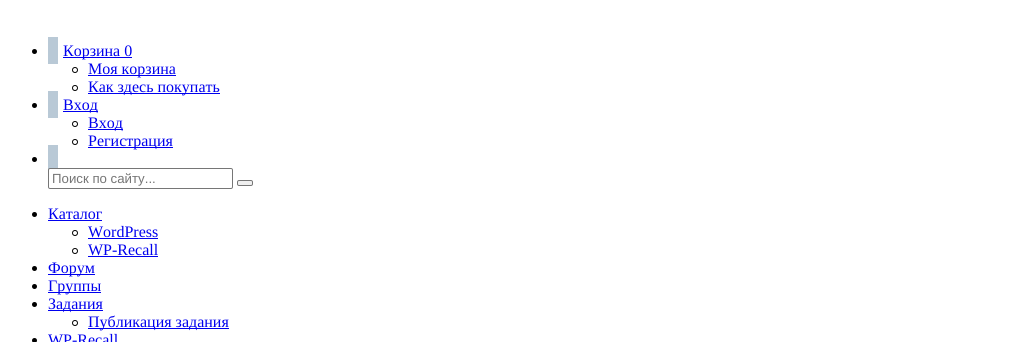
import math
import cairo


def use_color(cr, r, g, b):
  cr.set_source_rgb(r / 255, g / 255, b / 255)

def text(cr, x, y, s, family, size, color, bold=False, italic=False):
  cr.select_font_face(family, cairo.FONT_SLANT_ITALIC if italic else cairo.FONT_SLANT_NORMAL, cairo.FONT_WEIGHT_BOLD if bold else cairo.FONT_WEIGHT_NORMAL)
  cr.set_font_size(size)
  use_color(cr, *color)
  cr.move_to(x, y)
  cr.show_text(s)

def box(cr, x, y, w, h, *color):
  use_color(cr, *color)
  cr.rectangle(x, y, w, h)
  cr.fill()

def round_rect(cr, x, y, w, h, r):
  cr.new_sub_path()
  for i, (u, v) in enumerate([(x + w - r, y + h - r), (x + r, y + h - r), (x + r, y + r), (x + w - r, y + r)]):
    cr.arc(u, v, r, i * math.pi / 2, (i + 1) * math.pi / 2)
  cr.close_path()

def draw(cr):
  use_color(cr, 255, 255, 255)
  cr.paint()
  use_color(cr, 0, 0, 0)
  cr.arc(34.5, 51.5, 2.5, 0, 2 * math.pi)
  cr.fill()
  box(cr, 48, 37, 10, 27, 185, 201, 214)
  box(cr, 63, 57, 69, 1, 0, 0, 238)
  cr.arc(75, 70, 2.5, 0, 2 * math.pi)
  use_color(cr, 0, 0, 0)
  cr.set_line_width(1)
  cr.stroke()
  box(cr, 88, 75, 88, 1, 0, 0, 238)
  cr.arc(75, 88, 2.5, 0, 2 * math.pi)
  use_color(cr, 0, 0, 0)
  cr.stroke()
  box(cr, 88, 93, 132, 1, 0, 0, 238)
  use_color(cr, 0, 0, 0)
  cr.arc(34.5, 105.5, 2.5, 0, 2 * math.pi)
  cr.fill()
  box(cr, 48, 91, 10, 27, 185, 201, 214)
  box(cr, 63, 111, 35, 1, 0, 0, 238)
  cr.arc(75, 124, 2.5, 0, 2 * math.pi)
  use_color(cr, 0, 0, 0)
  cr.stroke()
  box(cr, 88, 129, 35, 1, 0, 0, 238)
  cr.arc(75, 142, 2.5, 0, 2 * math.pi)
  use_color(cr, 0, 0, 0)
  cr.stroke()
  box(cr, 88, 147, 85, 1, 0, 0, 238)
  use_color(cr, 0, 0, 0)
  cr.arc(34.5, 159.5, 2.5, 0, 2 * math.pi)
  cr.fill()
  box(cr, 48, 145, 10, 25, 185, 201, 214)
  use_color(cr, 255, 255, 255)
  round_rect(cr, 48.5, 168.5, 184, 20, 1.5)
  cr.fill_preserve()
  use_color(cr, 118, 118, 118)
  cr.stroke()
  use_color(cr, 239, 239, 239)
  round_rect(cr, 237.5, 180.5, 15, 5, 1.5)
  cr.fill_preserve()
  use_color(cr, 118, 118, 118)
  cr.stroke()
  use_color(cr, 0, 0, 0)
  cr.arc(34.5, 214.5, 2.5, 0, 2 * math.pi)
  cr.fill()
  box(cr, 48, 220, 54, 1, 0, 0, 238)
  cr.arc(75, 233, 2.5, 0, 2 * math.pi)
  use_color(cr, 0, 0, 0)
  cr.stroke()
  box(cr, 88, 238, 70, 1, 0, 0, 238)
  cr.arc(75, 251, 2.5, 0, 2 * math.pi)
  use_color(cr, 0, 0, 0)
  cr.stroke()
  box(cr, 88, 256, 70, 1, 0, 0, 238)
  use_color(cr, 0, 0, 0)
  cr.arc(34.5, 268.5, 2.5, 0, 2 * math.pi)
  cr.fill()
  box(cr, 48, 274, 47, 1, 0, 0, 238)
  use_color(cr, 0, 0, 0)
  cr.arc(34.5, 286.5, 2.5, 0, 2 * math.pi)
  cr.fill()
  box(cr, 48, 292, 53, 1, 0, 0, 238)
  use_color(cr, 0, 0, 0)
  cr.arc(34.5, 304.5, 2.5, 0, 2 * math.pi)
  cr.fill()
  box(cr, 48, 310, 55, 1, 0, 0, 238)
  cr.arc(75, 323, 2.5, 0, 2 * math.pi)
  use_color(cr, 0, 0, 0)
  cr.stroke()
  box(cr, 88, 328, 141, 1, 0, 0, 238)
  use_color(cr, 0, 0, 0)
  cr.arc(34.5, 340.5, 2.5, 0, 2 * math.pi)
  cr.fill()
  text(cr, 63, 56, "Корзина 0", "Liberation Serif", 16, (0, 0, 238))
  text(cr, 88, 74, "Моя корзина", "Liberation Serif", 16, (0, 0, 238))
  text(cr, 88, 92, "Как здесь покупать", "Liberation Serif", 16, (0, 0, 238))
  text(cr, 63, 110, "Вход", "Liberation Serif", 16, (0, 0, 238))
  text(cr, 88, 128, "Вход", "Liberation Serif", 16, (0, 0, 238))
  text(cr, 88, 146, "Регистрация", "Liberation Serif", 16, (0, 0, 238))
  text(cr, 52, 183, "Поиск по сайту...", "Liberation Sans", 13.25, (117, 117, 117))
  text(cr, 48, 219, "Каталог", "Liberation Serif", 16, (0, 0, 238))
  text(cr, 88, 237, "WordPress", "Liberation Serif", 16, (0, 0, 238))
  text(cr, 88, 255, "WP-Recall", "Liberation Serif", 16, (0, 0, 238))
  text(cr, 48, 273, "Форум", "Liberation Serif", 16, (0, 0, 238))
  text(cr, 48, 291, "Группы", "Liberation Serif", 16, (0, 0, 238))
  text(cr, 48, 309, "Задания", "Liberation Serif", 16, (0, 0, 238))
  text(cr, 88, 327, "Публикация задания", "Liberation Serif", 16, (0, 0, 238))
  text(cr, 48, 345, "WP-Recall", "Liberation Serif", 16, (0, 0, 238))


surface = cairo.ImageSurface(cairo.FORMAT_RGB24, 1015, 342)
cr = cairo.Context(surface)
options = cairo.FontOptions()
options.set_hint_metrics(cairo.HINT_METRICS_OFF)
options.set_hint_style(cairo.HINT_STYLE_NONE)
cr.set_font_options(options)
cr.set_miter_limit(4)
draw(cr)
surface.write_to_png("out.png")
